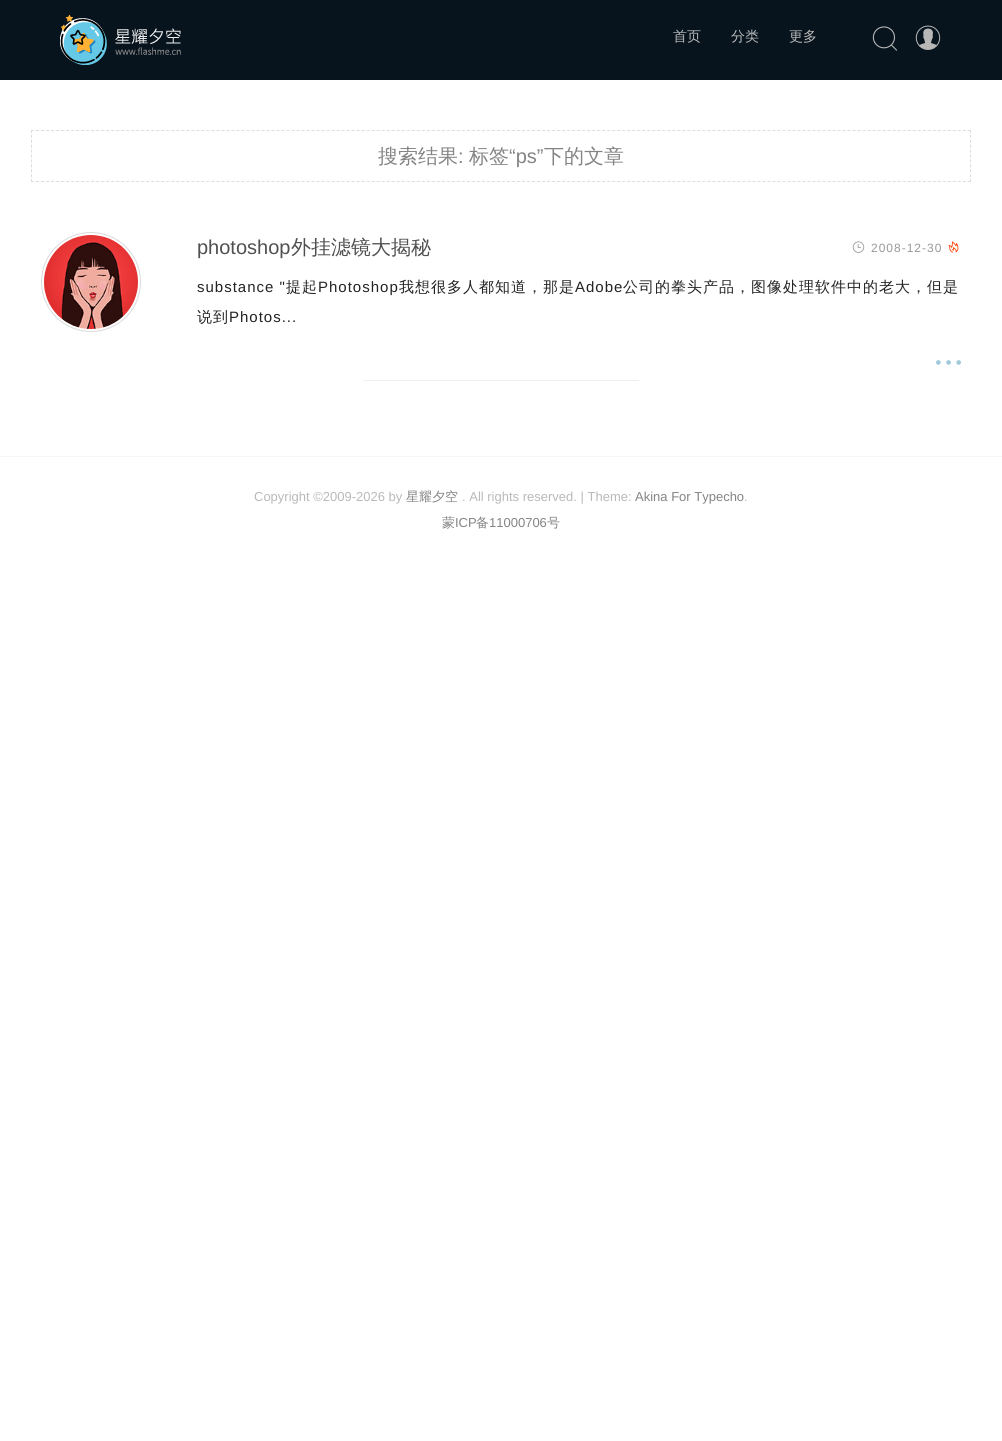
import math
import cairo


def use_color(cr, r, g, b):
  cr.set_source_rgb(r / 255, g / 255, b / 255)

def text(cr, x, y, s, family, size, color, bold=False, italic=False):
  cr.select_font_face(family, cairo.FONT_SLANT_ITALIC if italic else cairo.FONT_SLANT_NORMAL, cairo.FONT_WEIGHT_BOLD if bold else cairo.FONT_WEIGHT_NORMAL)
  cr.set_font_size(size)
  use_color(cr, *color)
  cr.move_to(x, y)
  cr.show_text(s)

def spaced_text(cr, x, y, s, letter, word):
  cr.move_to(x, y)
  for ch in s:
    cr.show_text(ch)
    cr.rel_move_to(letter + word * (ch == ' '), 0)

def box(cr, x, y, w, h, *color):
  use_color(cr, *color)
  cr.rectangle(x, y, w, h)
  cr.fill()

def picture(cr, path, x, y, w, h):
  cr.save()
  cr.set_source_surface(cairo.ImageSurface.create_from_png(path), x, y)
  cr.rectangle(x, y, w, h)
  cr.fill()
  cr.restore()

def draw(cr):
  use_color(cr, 255, 255, 255)
  cr.paint()
  box(cr, 0, 0, 1002, 80, 7, 20, 30)
  picture(cr, "img_01.png", 60, 15, 121, 50)
  picture(cr, "img_02.png", 872, 26, 26, 25)
  picture(cr, "img_03.png", 915, 25, 26, 25)
  cr.new_path()
  cr.move_to(31, 130.5)
  cr.line_to(971, 130.5)
  use_color(cr, 221, 221, 221)
  cr.set_line_width(1)
  cr.set_dash([3, 2.01])
  cr.stroke()
  cr.new_path()
  cr.move_to(970.5, 130)
  cr.line_to(970.5, 182)
  cr.set_dash([3, 1.9])
  cr.stroke()
  cr.new_path()
  cr.move_to(31, 181.5)
  cr.line_to(971, 181.5)
  cr.set_dash([3, 2.01])
  cr.stroke()
  cr.new_path()
  cr.move_to(31.5, 130)
  cr.line_to(31.5, 182)
  cr.set_dash([3, 1.9])
  cr.stroke()
  cr.arc(91, 282, 49.5, 0, 2 * math.pi)
  use_color(cr, 218, 218, 218)
  cr.set_dash([])
  cr.stroke()
  picture(cr, "img_04.png", 44, 235, 94, 94)
  picture(cr, "img_05.png", 852, 241, 13, 12)
  picture(cr, "img_06.png", 948, 241, 11, 12)
  picture(cr, "img_07.png", 936, 360, 25, 5)
  box(cr, 363, 380, 276, 1, 239, 239, 239)
  box(cr, 0, 456, 1002, 1, 247, 247, 247)
  text(cr, 673, 41, "首页", "WenQuanYi Zen Hei Medium", 14, (185, 185, 185))
  text(cr, 731, 41, "分类", "WenQuanYi Zen Hei Medium", 14, (185, 185, 185))
  text(cr, 789, 41, "更多", "WenQuanYi Zen Hei Medium", 14, (185, 185, 185))
  text(cr, 378, 163, "搜索结果", "WenQuanYi Zen Hei Medium", 20, (132, 132, 132))
  text(cr, 458, 163, ":", "Liberation Sans", 20, (132, 132, 132))
  text(cr, 469, 163, "标签", "WenQuanYi Zen Hei Medium", 20, (132, 132, 132))
  text(cr, 509, 163, "“ps”", "Liberation Sans", 20, (132, 132, 132))
  text(cr, 544, 163, "下的文章", "WenQuanYi Zen Hei Medium", 20, (132, 132, 132))
  text(cr, 197, 254, "photoshop", "Liberation Sans", 20, (80, 80, 80))
  text(cr, 291, 254, "外挂滤镜大揭秘", "WenQuanYi Zen Hei Medium", 20, (80, 80, 80))
  cr.select_font_face("Liberation Sans")
  cr.set_font_size(12)
  use_color(cr, 152, 152, 152)
  spaced_text(cr, 871, 252, "2008-12-30", 1, 0)
  cr.set_font_size(15)
  use_color(cr, 35, 35, 35)
  spaced_text(cr, 197, 292, "substance \"", 1, 0)
  cr.select_font_face("WenQuanYi Zen Hei Medium")
  spaced_text(cr, 286, 292, "提起", 1, 0)
  cr.select_font_face("Liberation Sans")
  spaced_text(cr, 318, 292, "Photoshop", 1, 0)
  cr.select_font_face("WenQuanYi Zen Hei Medium")
  spaced_text(cr, 399, 292, "我想很多人都知道，那是", 1, 0)
  cr.select_font_face("Liberation Sans")
  spaced_text(cr, 575, 292, "Adobe", 1, 0)
  cr.select_font_face("WenQuanYi Zen Hei Medium")
  spaced_text(cr, 623, 292, "公司的拳头产品，图像处理软件中的老大，但是", 1, 0)
  spaced_text(cr, 197, 322, "说到", 1, 0)
  cr.select_font_face("Liberation Sans")
  spaced_text(cr, 229, 322, "Photos...", 1, 0)
  text(cr, 254, 501, "Copyright ©2009-2026 by", "Liberation Sans", 13, (185, 185, 185))
  text(cr, 406, 501, "星耀夕空", "WenQuanYi Zen Hei Medium", 13, (132, 132, 132))
  text(cr, 462, 501, ". All rights reserved. | Theme:", "Liberation Sans", 13, (185, 185, 185))
  text(cr, 635, 501, "Akina For Typecho", "Liberation Sans", 13, (132, 132, 132))
  text(cr, 744, 501, ".", "Liberation Sans", 13, (185, 185, 185))
  text(cr, 442, 527, "蒙", "WenQuanYi Zen Hei Medium", 13, (132, 132, 132))
  text(cr, 455, 527, "ICP", "Liberation Sans", 13, (132, 132, 132))
  text(cr, 476, 527, "备", "WenQuanYi Zen Hei Medium", 13, (132, 132, 132))
  text(cr, 489, 527, "11000706", "Liberation Sans", 13, (132, 132, 132))
  text(cr, 547, 527, "号", "WenQuanYi Zen Hei Medium", 13, (132, 132, 132))


surface = cairo.ImageSurface(cairo.FORMAT_RGB24, 1002, 1441)
cr = cairo.Context(surface)
options = cairo.FontOptions()
options.set_hint_metrics(cairo.HINT_METRICS_OFF)
options.set_hint_style(cairo.HINT_STYLE_NONE)
cr.set_font_options(options)
cr.set_miter_limit(4)
draw(cr)
surface.write_to_png("out.png")
